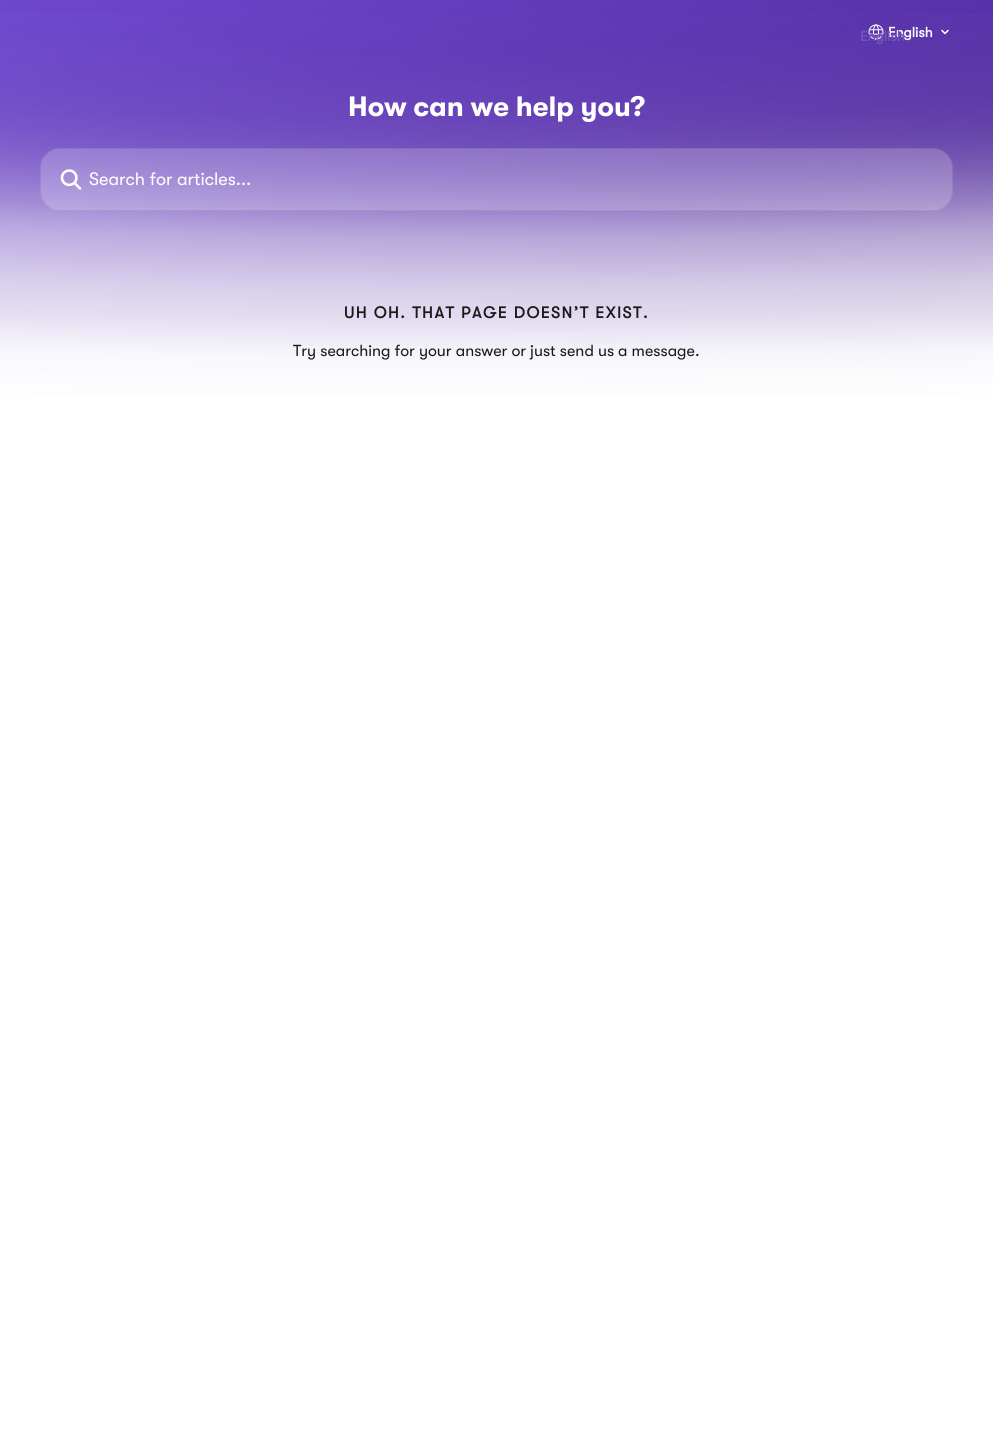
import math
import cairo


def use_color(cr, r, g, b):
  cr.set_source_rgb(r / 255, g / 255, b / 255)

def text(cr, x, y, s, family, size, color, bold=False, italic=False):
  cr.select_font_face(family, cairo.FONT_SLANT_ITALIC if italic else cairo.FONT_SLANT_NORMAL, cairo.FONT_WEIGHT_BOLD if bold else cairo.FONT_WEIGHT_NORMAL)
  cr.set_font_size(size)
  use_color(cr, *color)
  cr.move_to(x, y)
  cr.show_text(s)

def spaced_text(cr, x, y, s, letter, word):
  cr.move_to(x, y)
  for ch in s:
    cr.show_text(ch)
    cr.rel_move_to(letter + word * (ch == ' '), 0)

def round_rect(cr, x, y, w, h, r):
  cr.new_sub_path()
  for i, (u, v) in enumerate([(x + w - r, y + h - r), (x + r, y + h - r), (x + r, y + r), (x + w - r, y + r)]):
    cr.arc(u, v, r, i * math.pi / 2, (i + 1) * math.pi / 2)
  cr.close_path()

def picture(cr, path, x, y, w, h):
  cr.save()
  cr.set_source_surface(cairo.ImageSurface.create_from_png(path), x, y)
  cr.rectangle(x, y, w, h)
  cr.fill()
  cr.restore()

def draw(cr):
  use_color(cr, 255, 255, 255)
  cr.paint()
  gradient = cairo.LinearGradient(355, -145, 638, 550)
  gradient.add_color_stop_rgba(0, 0.431, 0.278, 0.812, 1)
  gradient.add_color_stop_rgba(1, 0.259, 0.11, 0.522, 1)
  cr.set_source(gradient)
  cr.rectangle(0, 0, 993, 398)
  cr.fill()
  gradient = cairo.RadialGradient(0, 0, 0, 0, 0, 1)
  gradient.set_matrix(cairo.Matrix(1 / 3310, 0, 0, 1 / 405, -1 * 497 / 3310, -1 * 0 / 405))
  gradient.add_color_stop_rgba(0, 1, 1, 1, 0)
  gradient.add_color_stop_rgba(0.12, 1, 1, 1, 0.01)
  gradient.add_color_stop_rgba(0.21, 1, 1, 1, 0.04)
  gradient.add_color_stop_rgba(0.29, 1, 1, 1, 0.07)
  gradient.add_color_stop_rgba(0.35, 1, 1, 1, 0.12)
  gradient.add_color_stop_rgba(0.4, 1, 1, 1, 0.18)
  gradient.add_color_stop_rgba(0.44, 1, 1, 1, 0.25)
  gradient.add_color_stop_rgba(0.48, 1, 1, 1, 0.33)
  gradient.add_color_stop_rgba(0.52, 1, 1, 1, 0.41)
  gradient.add_color_stop_rgba(0.55, 1, 1, 1, 0.49)
  gradient.add_color_stop_rgba(0.59, 1, 1, 1, 0.58)
  gradient.add_color_stop_rgba(0.65, 1, 1, 1, 0.67)
  gradient.add_color_stop_rgba(0.71, 1, 1, 1, 0.76)
  gradient.add_color_stop_rgba(0.79, 1, 1, 1, 0.84)
  gradient.add_color_stop_rgba(0.88, 1, 1, 1, 0.96)
  gradient.add_color_stop_rgba(1, 1, 1, 1, 1)
  cr.set_source(gradient)
  cr.rectangle(0, 13, 993, 385)
  cr.fill()
  picture(cr, "img_01.png", 868, 24, 16, 16)
  cr.new_path()
  cr.move_to(942, 30.5)
  cr.line_to(945, 33.5)
  cr.line_to(948, 30.5)
  use_color(cr, 255, 255, 255)
  cr.set_line_width(1.5)
  cr.set_line_cap(cairo.LINE_CAP_ROUND)
  cr.set_line_join(cairo.LINE_JOIN_ROUND)
  cr.stroke()
  cr.set_source_rgba(1, 1, 1, 0.2)
  round_rect(cr, 40, 148, 913, 63, 20)
  cr.fill()
  round_rect(cr, 40.5, 148.5, 912, 62, 19.5)
  cr.set_source_rgba(0, 0, 0, 0.08)
  cr.set_line_width(1)
  cr.set_line_cap(cairo.LINE_CAP_BUTT)
  cr.set_line_join(cairo.LINE_JOIN_MITER)
  cr.stroke()
  picture(cr, "img_02.png", 60, 169, 22, 21)
  text(cr, 888, 37, "English", "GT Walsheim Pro", 14, (255, 255, 255), bold=True)
  text(cr, 860, 41, "English", "GT Walsheim Pro", 14, (116, 84, 185), bold=True)
  text(cr, 348, 116, "How can we help you?", "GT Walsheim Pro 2", 28, (255, 255, 255), bold=True)
  text(cr, 89, 185, "Search for articles...", "GT Walsheim Pro", 18, (255, 255, 255))
  cr.select_font_face("GT Walsheim Pro", cairo.FONT_SLANT_NORMAL, cairo.FONT_WEIGHT_BOLD)
  cr.set_font_size(16)
  use_color(cr, 26, 26, 26)
  spaced_text(cr, 344, 318, "UH OH. THAT PAGE DOESN’T EXIST.", 1.6, 0)
  text(cr, 293, 356, "Try searching for your answer or just send us a message.", "GT Walsheim Pro", 16, (26, 26, 26))


surface = cairo.ImageSurface(cairo.FORMAT_RGB24, 993, 1448)
cr = cairo.Context(surface)
options = cairo.FontOptions()
options.set_hint_metrics(cairo.HINT_METRICS_OFF)
options.set_hint_style(cairo.HINT_STYLE_NONE)
cr.set_font_options(options)
cr.set_miter_limit(4)
draw(cr)
surface.write_to_png("out.png")
